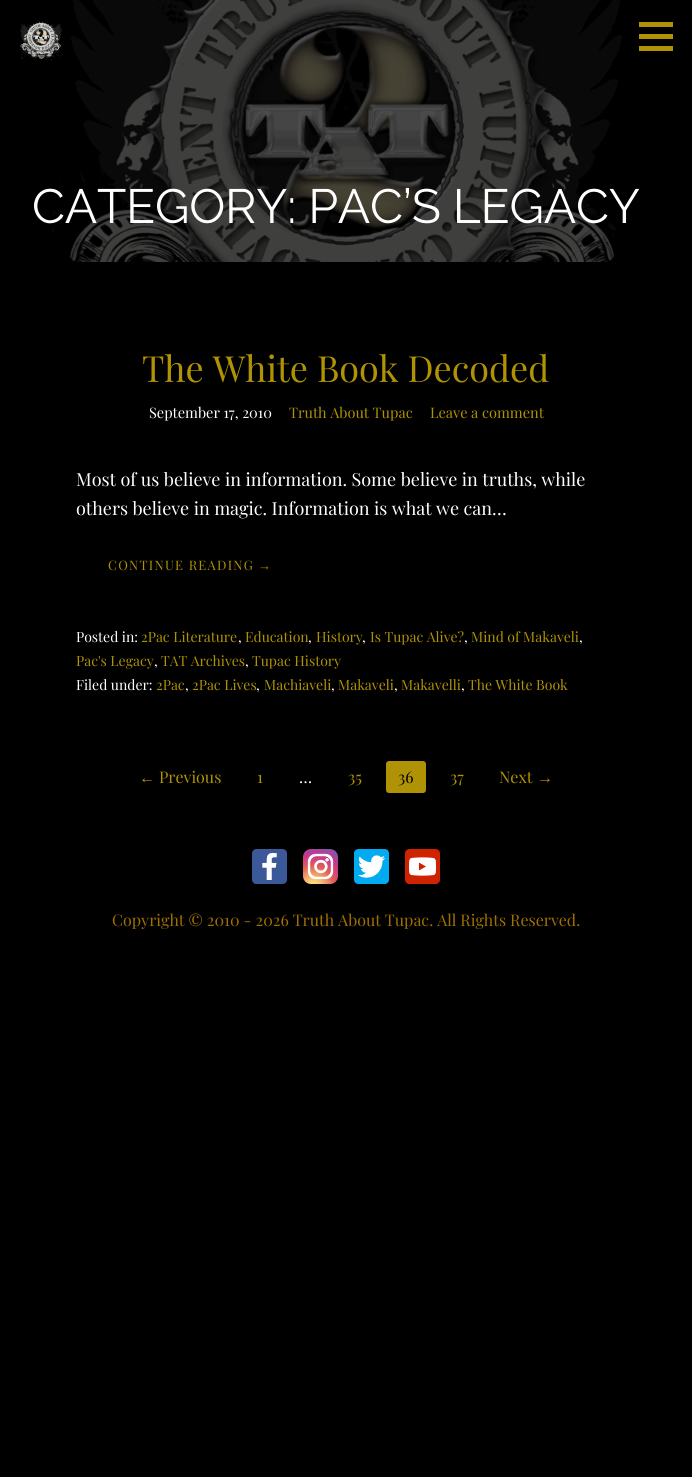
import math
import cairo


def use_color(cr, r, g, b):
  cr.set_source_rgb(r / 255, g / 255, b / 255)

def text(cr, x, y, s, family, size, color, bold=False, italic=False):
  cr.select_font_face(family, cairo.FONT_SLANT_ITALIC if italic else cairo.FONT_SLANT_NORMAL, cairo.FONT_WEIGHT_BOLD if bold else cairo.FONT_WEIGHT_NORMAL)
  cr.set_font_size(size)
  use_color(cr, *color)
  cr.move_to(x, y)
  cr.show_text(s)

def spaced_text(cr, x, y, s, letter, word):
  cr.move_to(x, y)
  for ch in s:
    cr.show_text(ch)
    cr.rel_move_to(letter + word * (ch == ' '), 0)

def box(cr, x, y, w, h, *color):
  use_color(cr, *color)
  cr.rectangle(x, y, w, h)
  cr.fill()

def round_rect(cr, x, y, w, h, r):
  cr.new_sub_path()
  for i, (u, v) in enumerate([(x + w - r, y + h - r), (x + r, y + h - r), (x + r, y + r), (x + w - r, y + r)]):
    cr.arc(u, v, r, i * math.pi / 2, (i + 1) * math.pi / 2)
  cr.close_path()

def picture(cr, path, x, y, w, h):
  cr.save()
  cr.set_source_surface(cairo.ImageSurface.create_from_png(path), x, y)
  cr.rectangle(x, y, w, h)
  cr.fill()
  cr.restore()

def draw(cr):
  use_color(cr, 0, 0, 0)
  cr.paint()
  picture(cr, "img_01.png", 51, 0, 571, 262)
  picture(cr, "img_02.png", 20, 21, 42, 41)
  box(cr, 639, 22, 34, 5, 175, 147, 4)
  box(cr, 639, 34, 34, 5, 175, 147, 4)
  box(cr, 639, 46, 34, 5, 175, 147, 4)
  round_rect(cr, 386, 761, 40, 32, 3)
  cr.fill()
  picture(cr, "img_03.png", 252, 849, 35, 35)
  picture(cr, "img_04.png", 303, 849, 35, 35)
  picture(cr, "img_05.png", 354, 849, 35, 35)
  picture(cr, "img_06.png", 405, 849, 35, 35)
  cr.select_font_face("Raleway")
  cr.set_font_size(48)
  use_color(cr, 255, 255, 255)
  spaced_text(cr, 32, 223, "CATEGORY: PAC’S LEGACY", -0.2, 0)
  text(cr, 142, 382, "The White Book Decoded", "Playfair Display", 36, (175, 147, 4))
  text(cr, 149, 418, "September 17, 2010", "Playfair Display", 14.5, (255, 255, 255))
  text(cr, 289, 418, "Truth About Tupac", "Playfair Display", 14.5, (175, 147, 4))
  text(cr, 430, 418, "Leave a comment", "Playfair Display", 14.5, (175, 147, 4))
  text(cr, 76, 486, "Most of us believe in information. Some believe in truths, while", "Playfair Display", 18, (255, 255, 255))
  text(cr, 76, 515, "others believe in magic. Information is what we can…", "Playfair Display", 18, (255, 255, 255))
  cr.set_font_size(13)
  use_color(cr, 175, 147, 4)
  spaced_text(cr, 108, 570, "CONTINUE READING", 1.25, 0)
  cr.select_font_face("Liberation Sans")
  spaced_text(cr, 258, 570, "→", 1.25, 0)
  text(cr, 76, 642, "Posted in:", "Playfair Display", 14, (255, 255, 255))
  text(cr, 141, 642, "2Pac Literature", "Playfair Display", 14, (175, 147, 4))
  text(cr, 238, 642, ",", "Playfair Display", 14, (255, 255, 255))
  text(cr, 245, 642, "Education", "Playfair Display", 14, (175, 147, 4))
  text(cr, 308, 642, ",", "Playfair Display", 14, (255, 255, 255))
  text(cr, 316, 642, "History", "Playfair Display", 14, (175, 147, 4))
  text(cr, 362, 642, ",", "Playfair Display", 14, (255, 255, 255))
  text(cr, 370, 642, "Is Tupac Alive?", "Playfair Display", 14, (175, 147, 4))
  text(cr, 464, 642, ",", "Playfair Display", 14, (255, 255, 255))
  text(cr, 471, 642, "Mind of Makaveli", "Playfair Display", 14, (175, 147, 4))
  text(cr, 579, 642, ",", "Playfair Display", 14, (255, 255, 255))
  text(cr, 76, 666, "Pac's Legacy", "Playfair Display", 14, (175, 147, 4))
  text(cr, 154, 666, ",", "Playfair Display", 14, (255, 255, 255))
  text(cr, 161, 666, "TAT Archives", "Playfair Display", 14, (175, 147, 4))
  text(cr, 245, 666, ",", "Playfair Display", 14, (255, 255, 255))
  text(cr, 252, 666, "Tupac History", "Playfair Display", 14, (175, 147, 4))
  text(cr, 76, 690, "Filed under:", "Playfair Display", 14, (255, 255, 255))
  text(cr, 156, 690, "2Pac", "Playfair Display", 14, (175, 147, 4))
  text(cr, 185, 690, ",", "Playfair Display", 14, (255, 255, 255))
  text(cr, 192, 690, "2Pac Lives", "Playfair Display", 14, (175, 147, 4))
  text(cr, 256, 690, ",", "Playfair Display", 14, (255, 255, 255))
  text(cr, 264, 690, "Machiaveli", "Playfair Display", 14, (175, 147, 4))
  text(cr, 331, 690, ",", "Playfair Display", 14, (255, 255, 255))
  text(cr, 338, 690, "Makaveli", "Playfair Display", 14, (175, 147, 4))
  text(cr, 394, 690, ",", "Playfair Display", 14, (255, 255, 255))
  text(cr, 401, 690, "Makavelli", "Playfair Display", 14, (175, 147, 4))
  text(cr, 461, 690, ",", "Playfair Display", 14, (255, 255, 255))
  text(cr, 468, 690, "The White Book", "Playfair Display", 14, (175, 147, 4))
  text(cr, 139, 783, "←", "Liberation Sans", 16, (175, 147, 4))
  text(cr, 159, 783, "Previous", "Playfair Display", 16, (175, 147, 4))
  text(cr, 257, 783, "1", "Playfair Display", 16, (175, 147, 4))
  text(cr, 299, 783, "…", "Playfair Display", 16, (255, 255, 255))
  text(cr, 348, 783, "35", "Playfair Display", 16, (175, 147, 4))
  text(cr, 398, 783, "36", "Playfair Display", 16, (0, 0, 0))
  text(cr, 450, 783, "37", "Playfair Display", 16, (175, 147, 4))
  text(cr, 499, 783, "Next", "Playfair Display", 16, (175, 147, 4))
  text(cr, 537, 783, "→", "Liberation Sans", 16, (175, 147, 4))
  text(cr, 112, 926, "Copyright © 2010 - 2026 Truth About Tupac. All Rights Reserved.", "Playfair Display", 16, (160, 112, 0))


surface = cairo.ImageSurface(cairo.FORMAT_RGB24, 692, 1477)
cr = cairo.Context(surface)
options = cairo.FontOptions()
options.set_hint_metrics(cairo.HINT_METRICS_OFF)
options.set_hint_style(cairo.HINT_STYLE_NONE)
cr.set_font_options(options)
cr.set_miter_limit(4)
draw(cr)
surface.write_to_png("out.png")
